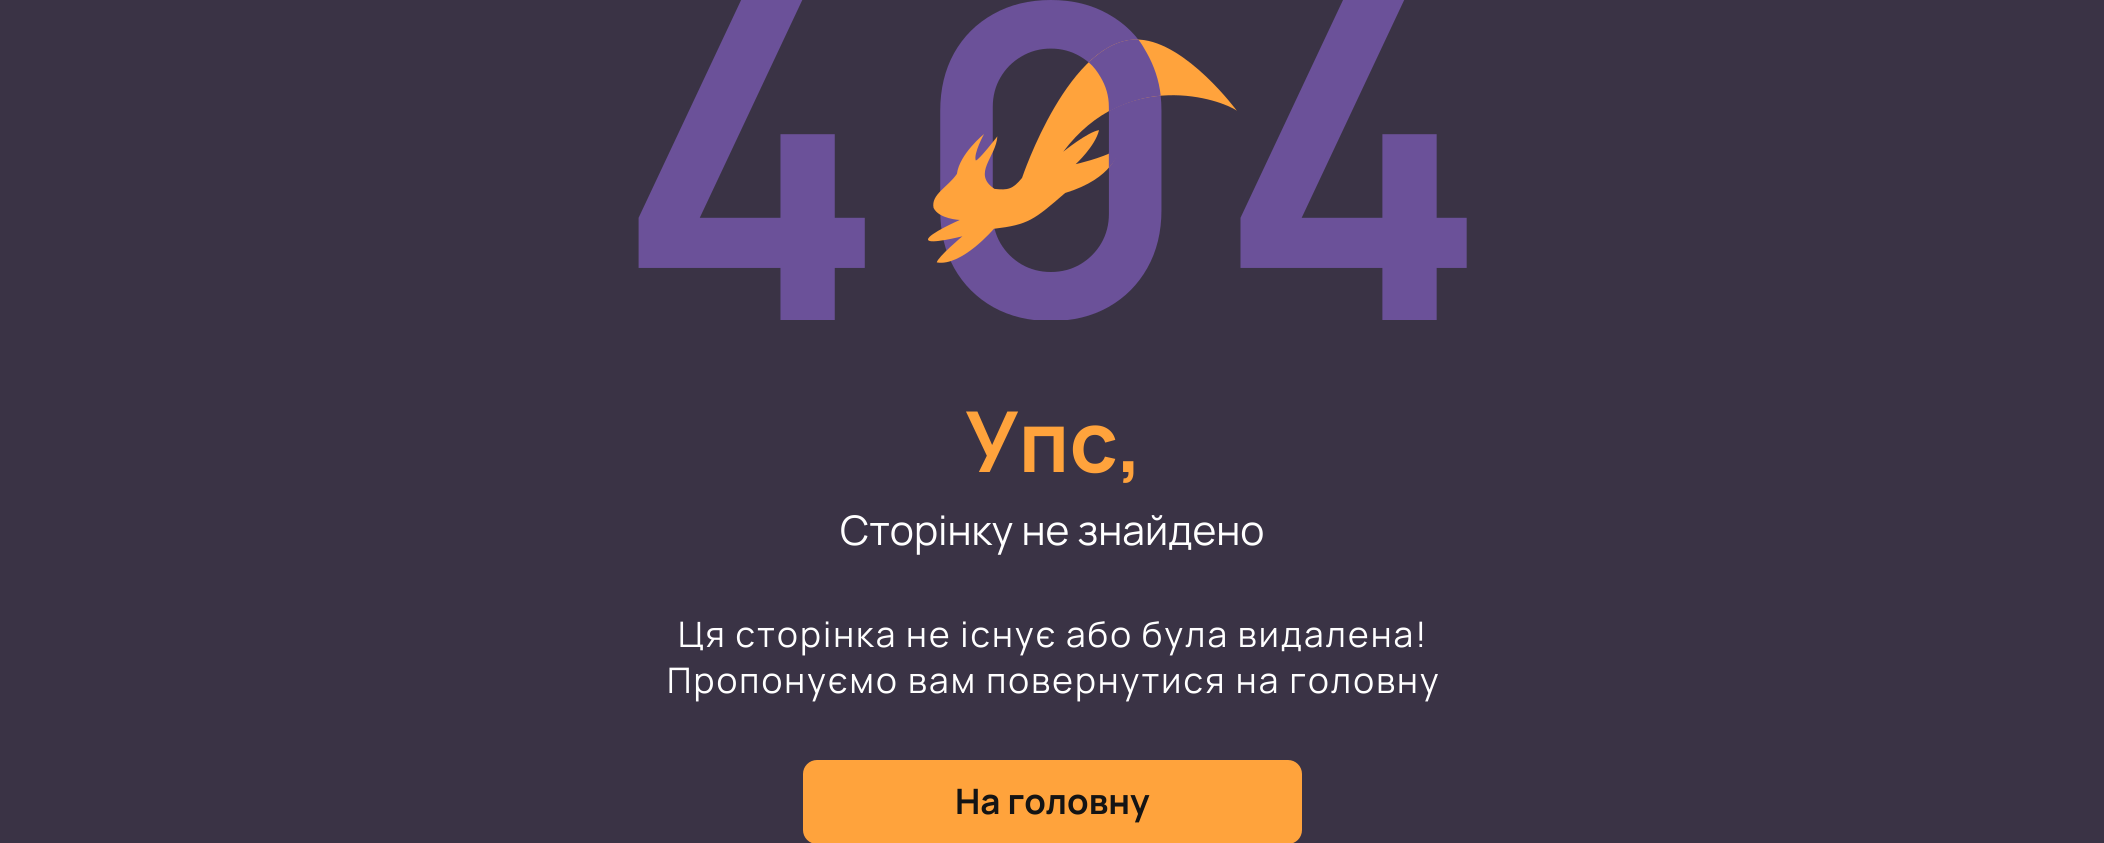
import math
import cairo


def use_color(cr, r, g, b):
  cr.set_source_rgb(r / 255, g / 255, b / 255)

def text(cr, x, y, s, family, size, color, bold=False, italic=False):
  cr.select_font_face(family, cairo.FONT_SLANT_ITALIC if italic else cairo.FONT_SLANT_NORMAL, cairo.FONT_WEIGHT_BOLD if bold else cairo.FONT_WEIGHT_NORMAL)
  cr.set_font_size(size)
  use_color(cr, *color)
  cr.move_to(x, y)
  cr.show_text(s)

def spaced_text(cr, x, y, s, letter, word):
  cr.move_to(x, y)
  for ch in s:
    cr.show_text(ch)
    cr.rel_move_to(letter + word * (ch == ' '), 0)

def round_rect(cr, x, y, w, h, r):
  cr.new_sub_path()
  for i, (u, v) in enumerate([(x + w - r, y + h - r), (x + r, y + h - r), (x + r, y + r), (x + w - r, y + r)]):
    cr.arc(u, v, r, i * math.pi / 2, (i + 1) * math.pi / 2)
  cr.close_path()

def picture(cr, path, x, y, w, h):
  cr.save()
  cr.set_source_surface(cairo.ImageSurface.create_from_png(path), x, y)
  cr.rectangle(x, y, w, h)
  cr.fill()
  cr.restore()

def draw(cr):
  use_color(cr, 58, 51, 69)
  cr.paint()
  picture(cr, "img_01.png", 638, 0, 829, 320)
  use_color(cr, 255, 163, 60)
  round_rect(cr, 803, 760, 499, 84, 14)
  cr.fill()
  text(cr, 965, 472, "Упс,", "Manrope", 84, (255, 163, 60), bold=True)
  text(cr, 840, 545, "Сторінку не знайдено", "Manrope", 40.75, (255, 255, 255))
  cr.set_font_size(35.2)
  spaced_text(cr, 678, 647, "Ця сторінка не існує або була видалена!", 2.1, -0.5)
  spaced_text(cr, 667, 693, "Пропонуємо вам повернутися на головну", 2.1, 0)
  text(cr, 955, 814, "На головну", "Manrope", 35, (20, 20, 20), bold=True)


surface = cairo.ImageSurface(cairo.FORMAT_RGB24, 2104, 843)
cr = cairo.Context(surface)
options = cairo.FontOptions()
options.set_hint_metrics(cairo.HINT_METRICS_OFF)
options.set_hint_style(cairo.HINT_STYLE_NONE)
cr.set_font_options(options)
cr.set_miter_limit(4)
draw(cr)
surface.write_to_png("out.png")
